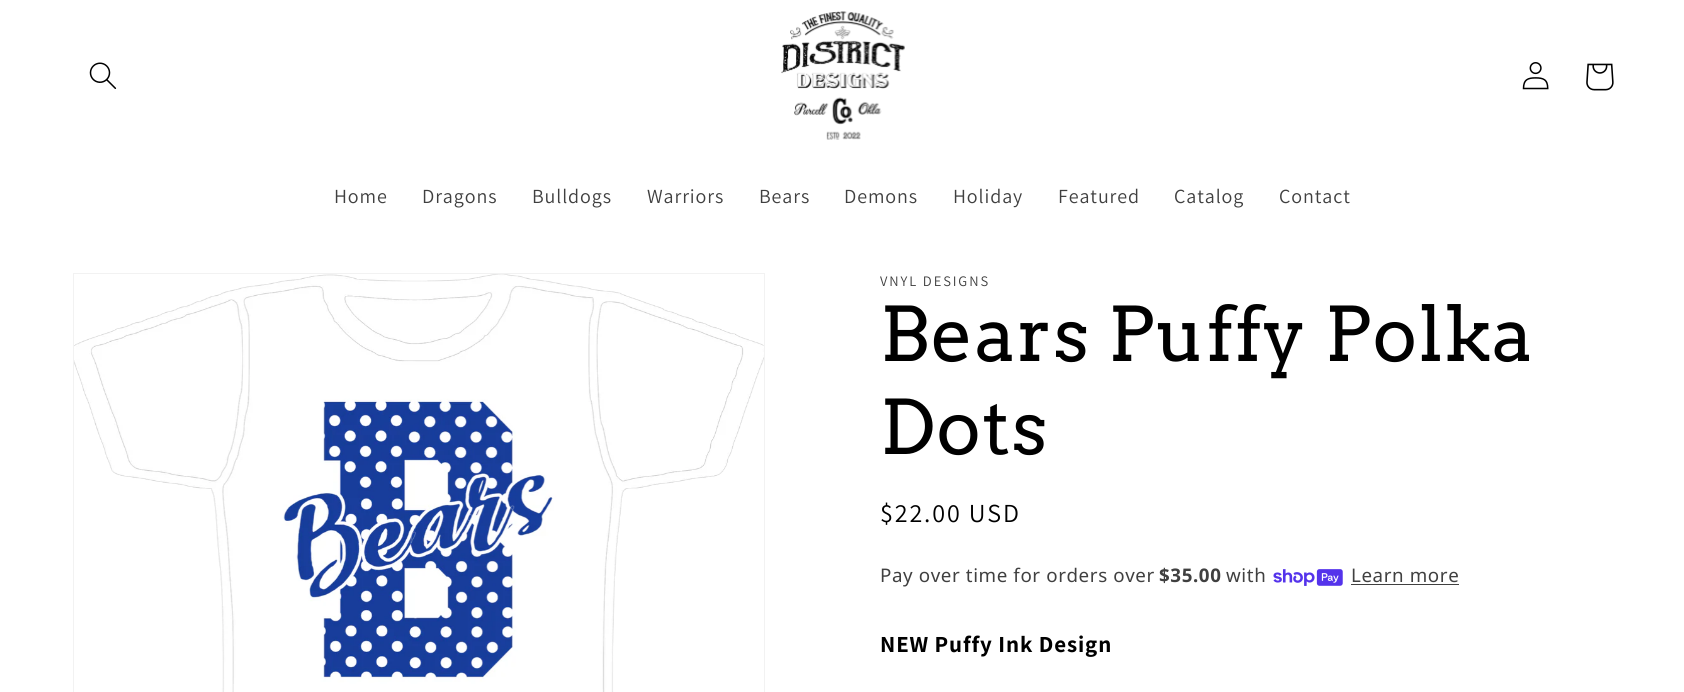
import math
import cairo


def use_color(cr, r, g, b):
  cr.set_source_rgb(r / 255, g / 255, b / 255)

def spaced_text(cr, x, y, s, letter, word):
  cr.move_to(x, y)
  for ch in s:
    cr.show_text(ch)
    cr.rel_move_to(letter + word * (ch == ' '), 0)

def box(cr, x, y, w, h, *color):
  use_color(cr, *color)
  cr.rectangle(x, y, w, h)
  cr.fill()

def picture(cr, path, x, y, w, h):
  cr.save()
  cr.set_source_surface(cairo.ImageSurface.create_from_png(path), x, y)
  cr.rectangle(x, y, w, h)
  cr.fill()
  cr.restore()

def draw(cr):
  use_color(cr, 255, 255, 255)
  cr.paint()
  picture(cr, "img_01.png", 89, 62, 28, 27)
  picture(cr, "img_02.png", 781, 11, 124, 129)
  picture(cr, "img_03.png", 1522, 62, 27, 28)
  picture(cr, "img_04.png", 1586, 63, 28, 28)
  cr.rectangle(73.5, 273.5, 691, 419)
  use_color(cr, 242, 242, 242)
  cr.set_line_width(1)
  cr.stroke()
  picture(cr, "img_05.png", 74, 274, 690, 418)
  picture(cr, "img_06.png", 1273, 569, 70, 17)
  box(cr, 1351, 584, 108, 1, 64, 64, 64)
  cr.select_font_face("Assistant")
  cr.set_font_size(20)
  spaced_text(cr, 334, 203, "Home", 0.9, 0)
  spaced_text(cr, 422, 203, "Dragons", 0.9, 0)
  spaced_text(cr, 532, 203, "Bulldogs", 0.9, 0)
  spaced_text(cr, 647, 203, "Warriors", 0.9, 0)
  spaced_text(cr, 759, 203, "Bears", 0.9, 0)
  spaced_text(cr, 844, 203, "Demons", 0.9, 0)
  spaced_text(cr, 953, 203, "Holiday", 0.9, 0)
  spaced_text(cr, 1058, 203, "Featured", 0.9, 0)
  spaced_text(cr, 1174, 203, "Catalog", 0.9, 0)
  spaced_text(cr, 1279, 203, "Contact", 0.9, 0)
  cr.set_font_size(14.5)
  spaced_text(cr, 880, 286, "VNYL DESIGNS", 1.9, 0)
  cr.select_font_face("Arvo")
  cr.set_font_size(75)
  use_color(cr, 0, 0, 0)
  spaced_text(cr, 880, 361, "Bears Puffy Polka", 1.1, 0)
  spaced_text(cr, 880, 454, "Dots", 1.1, 0)
  cr.select_font_face("Assistant")
  cr.set_font_size(26)
  spaced_text(cr, 880, 522, "$22.00 USD", 1.9, 0)
  cr.select_font_face("Noto Sans")
  cr.set_font_size(18.75)
  use_color(cr, 64, 64, 64)
  spaced_text(cr, 880, 582, "Pay over time for orders over", 0.6, 0)
  cr.select_font_face("Noto Sans", cairo.FONT_SLANT_NORMAL, cairo.FONT_WEIGHT_BOLD)
  spaced_text(cr, 1159, 582, "$35.00", 0.6, 0)
  cr.select_font_face("Noto Sans")
  spaced_text(cr, 1226, 582, "with", 0.6, 0)
  spaced_text(cr, 1351, 582, "Learn more", 0.6, 0)
  cr.select_font_face("Assistant", cairo.FONT_SLANT_NORMAL, cairo.FONT_WEIGHT_BOLD)
  cr.set_font_size(23)
  use_color(cr, 0, 0, 0)
  spaced_text(cr, 880, 652, "NEW Puffy Ink Design", 0.9, 0)


surface = cairo.ImageSurface(cairo.FORMAT_RGB24, 1684, 692)
cr = cairo.Context(surface)
options = cairo.FontOptions()
options.set_hint_metrics(cairo.HINT_METRICS_OFF)
options.set_hint_style(cairo.HINT_STYLE_NONE)
cr.set_font_options(options)
cr.set_miter_limit(4)
draw(cr)
surface.write_to_png("out.png")
